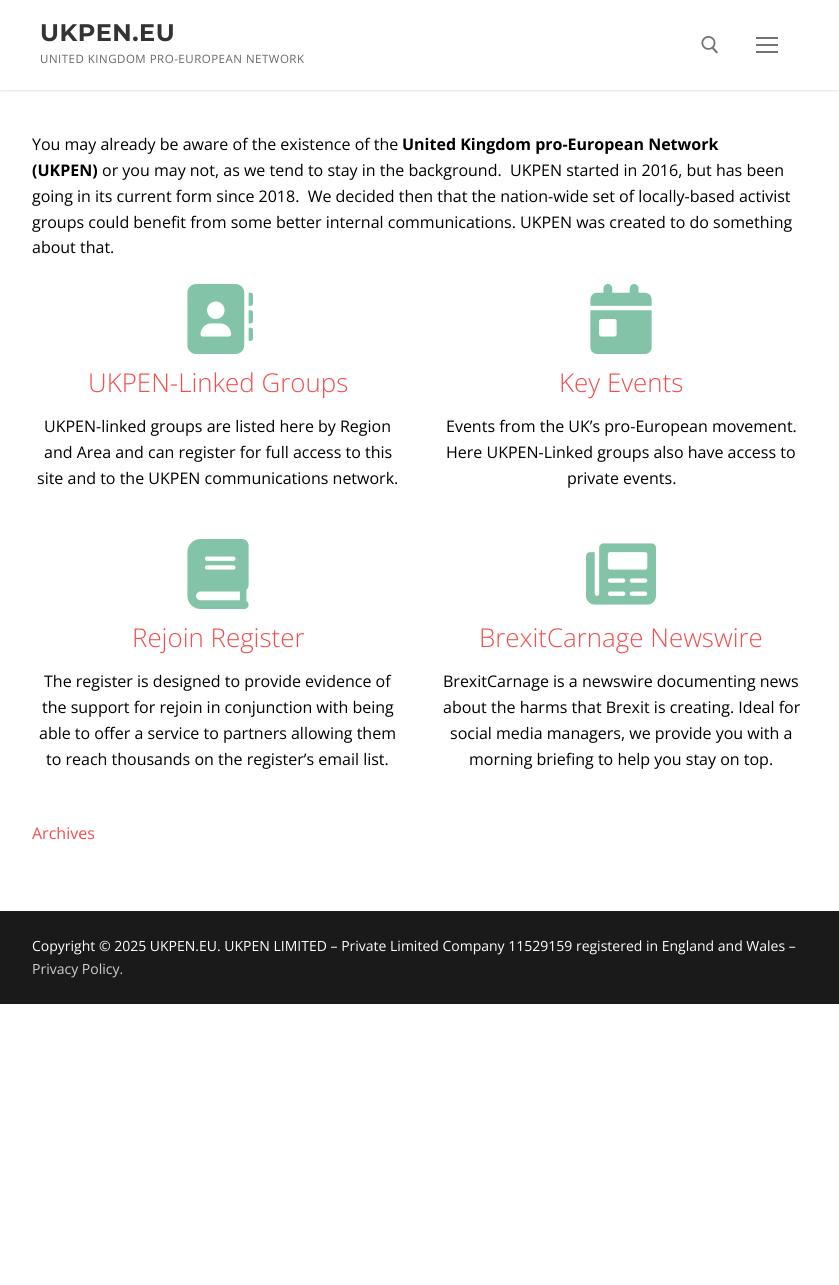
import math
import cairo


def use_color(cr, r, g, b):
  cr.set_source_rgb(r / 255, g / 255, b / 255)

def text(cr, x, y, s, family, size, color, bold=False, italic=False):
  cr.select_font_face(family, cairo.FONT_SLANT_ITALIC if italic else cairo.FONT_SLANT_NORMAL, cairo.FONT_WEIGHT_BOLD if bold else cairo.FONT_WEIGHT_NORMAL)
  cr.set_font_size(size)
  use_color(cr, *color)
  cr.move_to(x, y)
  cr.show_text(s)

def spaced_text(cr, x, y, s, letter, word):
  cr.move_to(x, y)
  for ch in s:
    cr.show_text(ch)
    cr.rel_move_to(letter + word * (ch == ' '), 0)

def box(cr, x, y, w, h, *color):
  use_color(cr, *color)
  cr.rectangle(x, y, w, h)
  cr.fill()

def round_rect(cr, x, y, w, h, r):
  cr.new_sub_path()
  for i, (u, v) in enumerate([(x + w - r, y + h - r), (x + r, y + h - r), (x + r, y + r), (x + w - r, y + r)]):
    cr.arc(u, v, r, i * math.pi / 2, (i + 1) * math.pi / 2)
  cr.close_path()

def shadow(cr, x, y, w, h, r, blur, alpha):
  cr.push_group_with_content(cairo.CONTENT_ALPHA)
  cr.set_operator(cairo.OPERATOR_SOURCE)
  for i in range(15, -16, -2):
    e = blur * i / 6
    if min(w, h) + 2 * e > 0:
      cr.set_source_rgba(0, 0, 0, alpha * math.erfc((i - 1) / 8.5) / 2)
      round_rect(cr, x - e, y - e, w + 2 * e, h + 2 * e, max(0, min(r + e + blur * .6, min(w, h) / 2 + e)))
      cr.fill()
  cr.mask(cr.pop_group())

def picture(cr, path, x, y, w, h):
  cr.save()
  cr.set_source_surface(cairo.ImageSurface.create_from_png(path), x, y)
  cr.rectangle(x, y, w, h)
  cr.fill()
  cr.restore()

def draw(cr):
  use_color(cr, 255, 255, 255)
  cr.paint()
  cr.save()
  cr.rectangle(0, 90, 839, 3)
  cr.clip()
  use_color(cr, 225, 229, 234)
  shadow(cr, 0, 1, 839, 90, 0, 1, 1)
  cr.restore()
  picture(cr, "img_01.png", 701, 36, 17, 18)
  box(cr, 756, 44, 22, 2, 115, 115, 115)
  box(cr, 756, 37, 22, 2, 115, 115, 115)
  box(cr, 756, 51, 22, 2, 115, 115, 115)
  picture(cr, "img_02.png", 187, 284, 66, 70)
  picture(cr, "img_03.png", 590, 284, 62, 70)
  picture(cr, "img_04.png", 187, 539, 62, 70)
  picture(cr, "img_05.png", 586, 543, 70, 62)
  box(cr, 0, 911, 839, 93, 26, 26, 26)
  cr.select_font_face("Montserrat", cairo.FONT_SLANT_NORMAL, cairo.FONT_WEIGHT_BOLD)
  cr.set_font_size(24)
  use_color(cr, 51, 51, 51)
  spaced_text(cr, 40, 41, "UKPEN.EU", 0.5, 0)
  cr.select_font_face("Open Sans")
  cr.set_font_size(11.5)
  use_color(cr, 102, 102, 102)
  spaced_text(cr, 40, 63, "UNITED KINGDOM PRO-EUROPEAN NETWORK", 0.5, 0)
  text(cr, 32, 150, "You may already be aware of the existence of the", "Open Sans", 16, (0, 0, 0))
  text(cr, 402, 150, "United Kingdom pro-European Network", "Open Sans", 16, (0, 0, 0), bold=True)
  text(cr, 32, 176, "(UKPEN)", "Open Sans", 16, (0, 0, 0), bold=True)
  text(cr, 102, 176, "or you may not, as we tend to stay in the background.  UKPEN started in 2016, but has been", "Open Sans", 16, (0, 0, 0))
  text(cr, 32, 202, "going in its current form since 2018.  We decided then that the nation-wide set of locally-based activist", "Open Sans", 16, (0, 0, 0))
  text(cr, 32, 228, "groups could benefit from some better internal communications. UKPEN was created to do something", "Open Sans", 16, (0, 0, 0))
  text(cr, 32, 253, "about that.", "Open Sans", 16, (0, 0, 0))
  text(cr, 88, 392, "UKPEN-Linked Groups", "Open Sans Light", 25.9, (241, 78, 78))
  text(cr, 44, 432, "UKPEN-linked groups are listed here by Region", "Open Sans", 16, (0, 0, 0))
  text(cr, 44, 458, "and Area and can register for full access to this", "Open Sans", 16, (0, 0, 0))
  text(cr, 37, 484, "site and to the UKPEN communications network.", "Open Sans", 16, (0, 0, 0))
  text(cr, 559, 392, "Key Events", "Open Sans Light", 25.9, (241, 78, 78))
  text(cr, 446, 432, "Events from the UK’s pro-European movement.", "Open Sans", 16, (0, 0, 0))
  text(cr, 446, 458, "Here UKPEN-Linked groups also have access to", "Open Sans", 16, (0, 0, 0))
  text(cr, 567, 484, "private events.", "Open Sans", 16, (0, 0, 0))
  text(cr, 132, 647, "Rejoin Register", "Open Sans Light", 25.9, (241, 78, 78))
  text(cr, 44, 687, "The register is designed to provide evidence of", "Open Sans", 16, (0, 0, 0))
  text(cr, 42, 713, "the support for rejoin in conjunction with being", "Open Sans", 16, (0, 0, 0))
  text(cr, 39, 739, "able to offer a service to partners allowing them", "Open Sans", 16, (0, 0, 0))
  text(cr, 46, 765, "to reach thousands on the register’s email list.", "Open Sans", 16, (0, 0, 0))
  text(cr, 479, 647, "BrexitCarnage Newswire", "Open Sans Light", 25.9, (241, 78, 78))
  text(cr, 443, 687, "BrexitCarnage is a newswire documenting news", "Open Sans", 16, (0, 0, 0))
  text(cr, 443, 713, "about the harms that Brexit is creating. Ideal for", "Open Sans", 16, (0, 0, 0))
  text(cr, 450, 739, "social media managers, we provide you with a", "Open Sans", 16, (0, 0, 0))
  text(cr, 469, 765, "morning briefing to help you stay on top.", "Open Sans", 16, (0, 0, 0))
  text(cr, 32, 839, "Archives", "Open Sans", 16, (241, 78, 78))
  text(cr, 32, 951, "Copyright © 2025 UKPEN.EU. UKPEN LIMITED – Private Limited Company 11529159 registered in England and Wales –", "Open Sans", 14, (253, 253, 253))
  text(cr, 32, 974, "Privacy Policy.", "Open Sans", 14, (207, 207, 207))


surface = cairo.ImageSurface(cairo.FORMAT_RGB24, 839, 1285)
cr = cairo.Context(surface)
options = cairo.FontOptions()
options.set_hint_metrics(cairo.HINT_METRICS_OFF)
options.set_hint_style(cairo.HINT_STYLE_NONE)
cr.set_font_options(options)
cr.set_miter_limit(4)
draw(cr)
surface.write_to_png("out.png")
